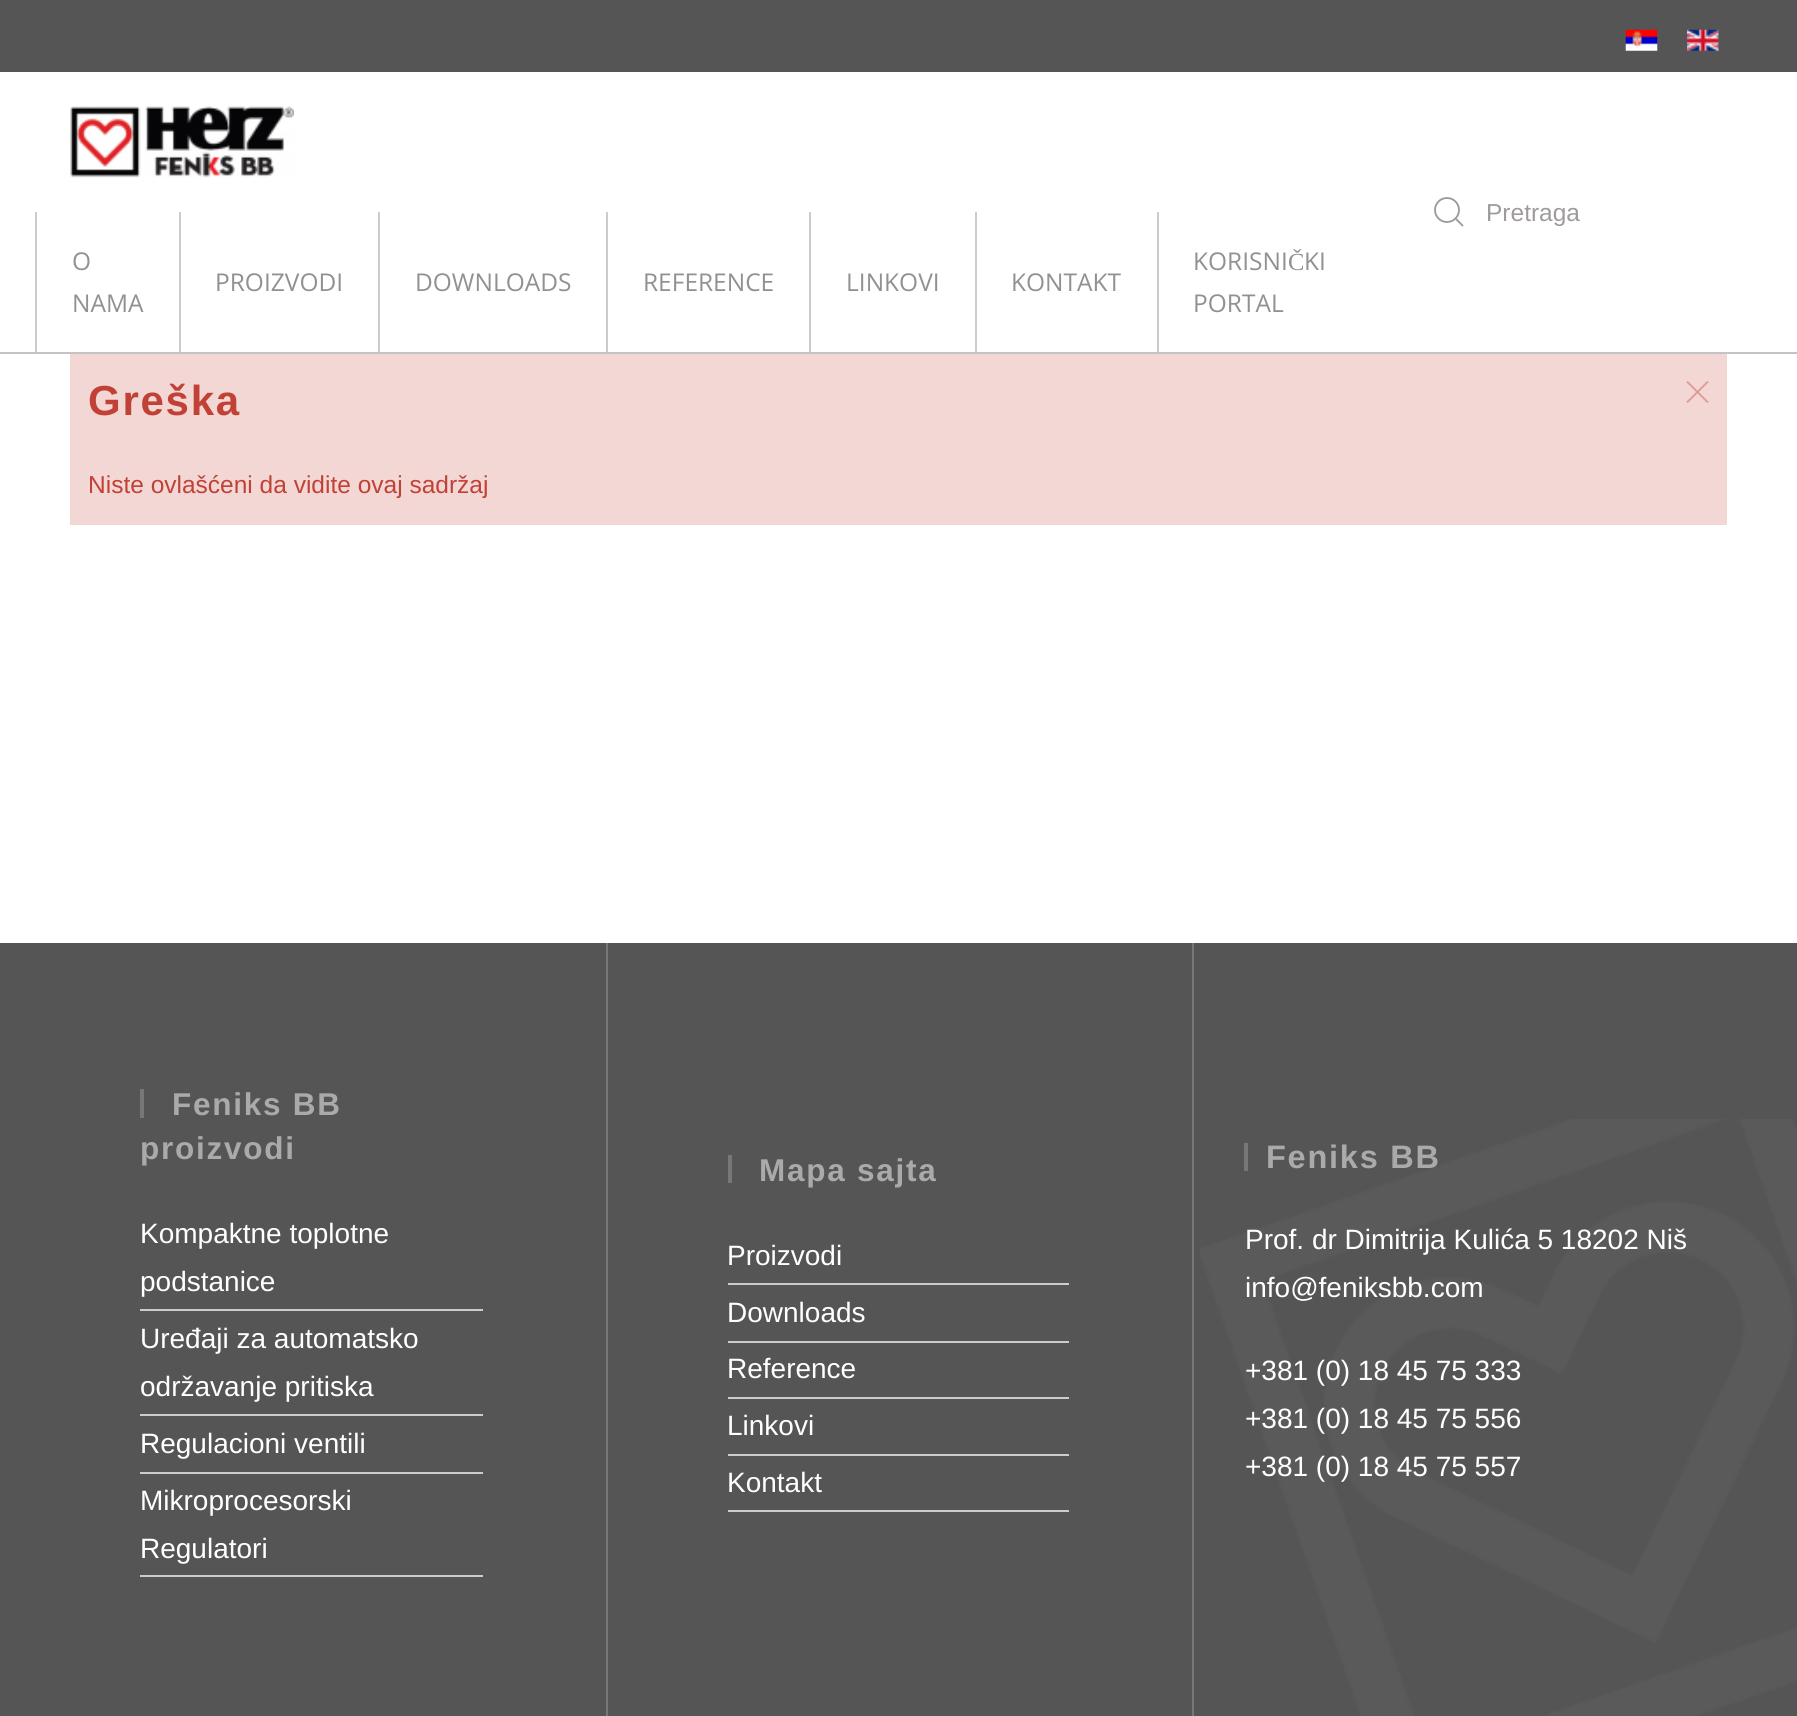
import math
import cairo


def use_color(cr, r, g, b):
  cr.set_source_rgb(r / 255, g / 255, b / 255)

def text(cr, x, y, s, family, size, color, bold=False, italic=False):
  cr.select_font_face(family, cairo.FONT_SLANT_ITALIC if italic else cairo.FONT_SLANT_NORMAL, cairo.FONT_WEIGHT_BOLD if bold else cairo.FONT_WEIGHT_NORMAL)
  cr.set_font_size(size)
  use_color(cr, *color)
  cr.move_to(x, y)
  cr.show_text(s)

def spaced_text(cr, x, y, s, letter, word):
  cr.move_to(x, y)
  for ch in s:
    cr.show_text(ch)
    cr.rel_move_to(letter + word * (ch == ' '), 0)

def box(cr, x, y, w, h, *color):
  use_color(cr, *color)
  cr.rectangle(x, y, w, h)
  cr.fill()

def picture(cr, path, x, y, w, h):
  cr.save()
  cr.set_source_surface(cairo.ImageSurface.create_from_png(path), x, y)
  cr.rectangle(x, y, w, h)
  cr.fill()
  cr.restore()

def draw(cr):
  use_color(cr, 255, 255, 255)
  cr.paint()
  box(cr, 0, 0, 1797, 72, 85, 85, 85)
  picture(cr, "img_01.png", 1625, 29, 33, 22)
  picture(cr, "img_02.png", 1687, 29, 32, 22)
  box(cr, 0, 352, 1797, 2, 196, 196, 196)
  cr.arc(1447, 210, 12, 0, 2 * math.pi)
  use_color(cr, 159, 155, 155)
  cr.set_line_width(1.9)
  cr.stroke()
  cr.new_path()
  cr.move_to(1456, 219)
  cr.line_to(1463, 226)
  cr.close_path()
  cr.stroke()
  picture(cr, "img_03.png", 70, 106, 224, 72)
  box(cr, 35, 212, 2, 140, 204, 204, 204)
  box(cr, 179, 212, 2, 140, 204, 204, 204)
  box(cr, 378, 212, 2, 140, 204, 204, 204)
  box(cr, 606, 212, 2, 140, 204, 204, 204)
  box(cr, 809, 212, 2, 140, 204, 204, 204)
  box(cr, 975, 212, 2, 140, 204, 204, 204)
  box(cr, 1157, 212, 2, 140, 204, 204, 204)
  box(cr, 70, 354, 1657, 171, 242, 215, 212)
  cr.new_path()
  cr.move_to(1687, 381.5)
  cr.line_to(1708, 402.5)
  cr.move_to(1708, 381.5)
  cr.line_to(1687, 402.5)
  use_color(cr, 222, 155, 149)
  cr.stroke()
  box(cr, 0, 943, 1797, 773, 85, 85, 85)
  picture(cr, "img_04.png", 1200, 1119, 597, 597)
  box(cr, 140, 1089, 4, 29, 119, 119, 119)
  box(cr, 140, 1309, 343, 2, 204, 204, 204)
  box(cr, 140, 1414, 343, 2, 204, 204, 204)
  box(cr, 140, 1472, 343, 2, 204, 204, 204)
  box(cr, 140, 1575, 343, 2, 204, 204, 204)
  box(cr, 606, 943, 2, 773, 119, 119, 119)
  box(cr, 728, 1155, 4, 28, 119, 119, 119)
  box(cr, 728, 1283, 341, 2, 204, 204, 204)
  box(cr, 728, 1341, 341, 2, 204, 204, 204)
  box(cr, 728, 1397, 341, 2, 204, 204, 204)
  box(cr, 728, 1454, 341, 2, 204, 204, 204)
  box(cr, 728, 1510, 341, 2, 204, 204, 204)
  box(cr, 1192, 943, 2, 773, 119, 119, 119)
  box(cr, 1244, 1143, 4, 28, 119, 119, 119)
  text(cr, 1486, 221, "Pretraga", "Liberation Sans", 24.5, (159, 155, 155))
  text(cr, 72, 270, "O", "Open Sans", 24.5, (146, 144, 144))
  text(cr, 72, 312, "NAMA", "Open Sans", 24.5, (146, 144, 144))
  text(cr, 215, 291, "PROIZVODI", "Open Sans", 24.5, (146, 144, 144))
  text(cr, 415, 291, "DOWNLOADS", "Open Sans", 24.5, (146, 144, 144))
  text(cr, 643, 291, "REFERENCE", "Open Sans", 24.5, (146, 144, 144))
  text(cr, 846, 291, "LINKOVI", "Open Sans", 24.5, (146, 144, 144))
  text(cr, 1011, 291, "KONTAKT", "Open Sans", 24.5, (146, 144, 144))
  text(cr, 1193, 270, "KORISNI", "Open Sans", 24.5, (146, 144, 144))
  text(cr, 1288, 270, "Č", "Liberation Serif", 24.5, (146, 144, 144))
  text(cr, 1304, 270, "KI", "Open Sans", 24.5, (146, 144, 144))
  text(cr, 1193, 312, "PORTAL", "Open Sans", 24.5, (146, 144, 144))
  cr.select_font_face("Liberation Sans", cairo.FONT_SLANT_NORMAL, cairo.FONT_WEIGHT_BOLD)
  cr.set_font_size(42)
  use_color(cr, 193, 65, 54)
  spaced_text(cr, 88, 415, "Greška", 1.75, 0)
  text(cr, 88, 493, "Niste ovlašćeni da vidite ovaj sadržaj", "Liberation Sans", 24.5, (193, 65, 54))
  cr.select_font_face("Liberation Sans", cairo.FONT_SLANT_NORMAL, cairo.FONT_WEIGHT_BOLD)
  cr.set_font_size(31.5)
  use_color(cr, 170, 170, 170)
  spaced_text(cr, 172, 1115, "Feniks BB", 1.75, 0)
  spaced_text(cr, 140, 1159, "proizvodi", 1.75, 0)
  text(cr, 140, 1243, "Kompaktne toplotne", "Liberation Sans", 28, (255, 255, 255))
  text(cr, 140, 1291, "podstanice", "Liberation Sans", 28, (255, 255, 255))
  text(cr, 140, 1348, "Uređaji za automatsko", "Liberation Sans", 28, (255, 255, 255))
  text(cr, 140, 1396, "održavanje pritiska", "Liberation Sans", 28, (255, 255, 255))
  text(cr, 140, 1453, "Regulacioni ventili", "Liberation Sans", 28, (255, 255, 255))
  text(cr, 140, 1510, "Mikroprocesorski", "Liberation Sans", 28, (255, 255, 255))
  text(cr, 140, 1558, "Regulatori", "Liberation Sans", 28, (255, 255, 255))
  cr.select_font_face("Liberation Sans", cairo.FONT_SLANT_NORMAL, cairo.FONT_WEIGHT_BOLD)
  cr.set_font_size(31.5)
  use_color(cr, 170, 170, 170)
  spaced_text(cr, 759, 1181, "Mapa sajta", 1.75, 0)
  text(cr, 727, 1265, "Proizvodi", "Liberation Sans", 28, (255, 255, 255))
  text(cr, 727, 1322, "Downloads", "Liberation Sans", 28, (255, 255, 255))
  text(cr, 727, 1378, "Reference", "Liberation Sans", 28, (255, 255, 255))
  text(cr, 727, 1435, "Linkovi", "Liberation Sans", 28, (255, 255, 255))
  text(cr, 727, 1492, "Kontakt", "Liberation Sans", 28, (255, 255, 255))
  cr.select_font_face("Liberation Sans", cairo.FONT_SLANT_NORMAL, cairo.FONT_WEIGHT_BOLD)
  cr.set_font_size(32.5)
  use_color(cr, 170, 170, 170)
  spaced_text(cr, 1266, 1168, "Feniks BB", 1.75, 0)
  text(cr, 1245, 1249, "Prof. dr Dimitrija Kulića 5 18202 Niš", "Liberation Sans", 28, (255, 255, 255))
  text(cr, 1245, 1297, "info@feniksbb.com", "Liberation Sans", 28, (255, 255, 255))
  text(cr, 1245, 1380, "+381 (0) 18 45 75 333", "Liberation Sans", 28, (255, 255, 255))
  text(cr, 1245, 1428, "+381 (0) 18 45 75 556", "Liberation Sans", 28, (255, 255, 255))
  text(cr, 1245, 1476, "+381 (0) 18 45 75 557", "Liberation Sans", 28, (255, 255, 255))


surface = cairo.ImageSurface(cairo.FORMAT_RGB24, 1797, 1716)
cr = cairo.Context(surface)
options = cairo.FontOptions()
options.set_hint_metrics(cairo.HINT_METRICS_OFF)
options.set_hint_style(cairo.HINT_STYLE_NONE)
cr.set_font_options(options)
cr.set_miter_limit(4)
draw(cr)
surface.write_to_png("out.png")
